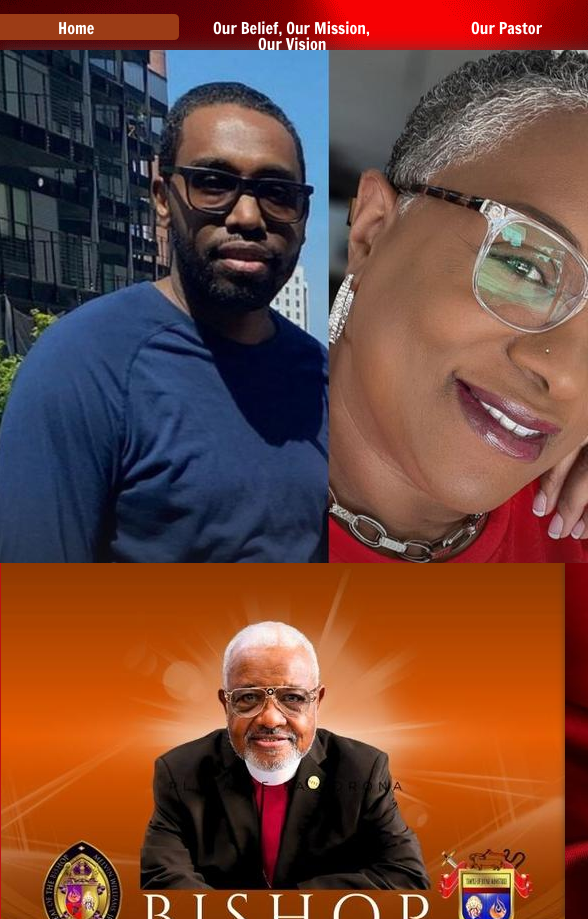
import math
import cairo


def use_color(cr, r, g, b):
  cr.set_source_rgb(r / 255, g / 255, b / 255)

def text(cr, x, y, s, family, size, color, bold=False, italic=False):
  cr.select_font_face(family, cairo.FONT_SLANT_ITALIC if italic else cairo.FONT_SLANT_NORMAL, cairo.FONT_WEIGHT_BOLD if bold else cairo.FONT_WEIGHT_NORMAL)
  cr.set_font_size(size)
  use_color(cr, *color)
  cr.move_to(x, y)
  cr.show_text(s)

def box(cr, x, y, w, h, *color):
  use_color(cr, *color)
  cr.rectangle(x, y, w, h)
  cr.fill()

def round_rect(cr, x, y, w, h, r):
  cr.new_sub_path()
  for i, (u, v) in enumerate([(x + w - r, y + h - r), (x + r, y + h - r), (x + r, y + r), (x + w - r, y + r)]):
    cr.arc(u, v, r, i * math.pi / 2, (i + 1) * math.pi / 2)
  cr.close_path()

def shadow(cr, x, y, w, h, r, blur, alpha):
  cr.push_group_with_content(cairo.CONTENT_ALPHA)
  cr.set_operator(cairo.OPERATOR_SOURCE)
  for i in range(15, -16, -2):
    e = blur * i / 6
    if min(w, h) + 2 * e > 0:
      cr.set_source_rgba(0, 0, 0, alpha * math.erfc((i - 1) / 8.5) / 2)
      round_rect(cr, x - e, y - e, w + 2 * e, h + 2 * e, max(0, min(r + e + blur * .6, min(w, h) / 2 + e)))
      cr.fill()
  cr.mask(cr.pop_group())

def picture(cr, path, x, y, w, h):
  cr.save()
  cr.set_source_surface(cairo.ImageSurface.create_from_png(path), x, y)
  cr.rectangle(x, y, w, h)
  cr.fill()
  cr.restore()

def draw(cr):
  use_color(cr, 255, 255, 255)
  cr.paint()
  picture(cr, "img_01.png", 0, 0, 588, 50)
  use_color(cr, 68, 68, 68)
  shadow(cr, 5, 52, 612, 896, 0, 9.5, 1)
  box(cr, 0, 563, 1, 356, 255, 0, 0)
  use_color(cr, 156, 60, 22)
  cr.new_path()
  cr.move_to(0, 14)
  cr.line_to(174, 14)
  cr.curve_to(177, 14, 179, 16, 179, 19)
  cr.line_to(179, 35)
  cr.curve_to(179, 38, 177, 40, 174, 40)
  cr.line_to(0, 40)
  cr.close_path()
  cr.fill()
  use_color(cr, 50, 50, 50)
  shadow(cr, 1, 564, 572, 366, 0, 3.5, 0.75)
  picture(cr, "img_03.png", 1, 563, 564, 356)
  text(cr, 58, 34, "Home", "Francois One", 16, (255, 255, 255))
  text(cr, 213, 34, "Our Belief, Our Mission,", "Francois One", 16, (255, 255, 255))
  text(cr, 258, 50, "Our Vision", "Francois One", 16, (255, 255, 255))
  text(cr, 471, 34, "Our Pastor", "Francois One", 16, (255, 255, 255))
  picture(cr, "img_02.png", 0, 50, 588, 513)
  use_color(cr, 50, 50, 50)
  shadow(cr, 565, 566, 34, 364, 0, 3.5, 0.75)
  picture(cr, "img_04.png", 565, 563, 23, 356)


surface = cairo.ImageSurface(cairo.FORMAT_RGB24, 588, 919)
cr = cairo.Context(surface)
options = cairo.FontOptions()
options.set_hint_metrics(cairo.HINT_METRICS_OFF)
options.set_hint_style(cairo.HINT_STYLE_NONE)
cr.set_font_options(options)
cr.set_miter_limit(4)
draw(cr)
surface.write_to_png("out.png")
